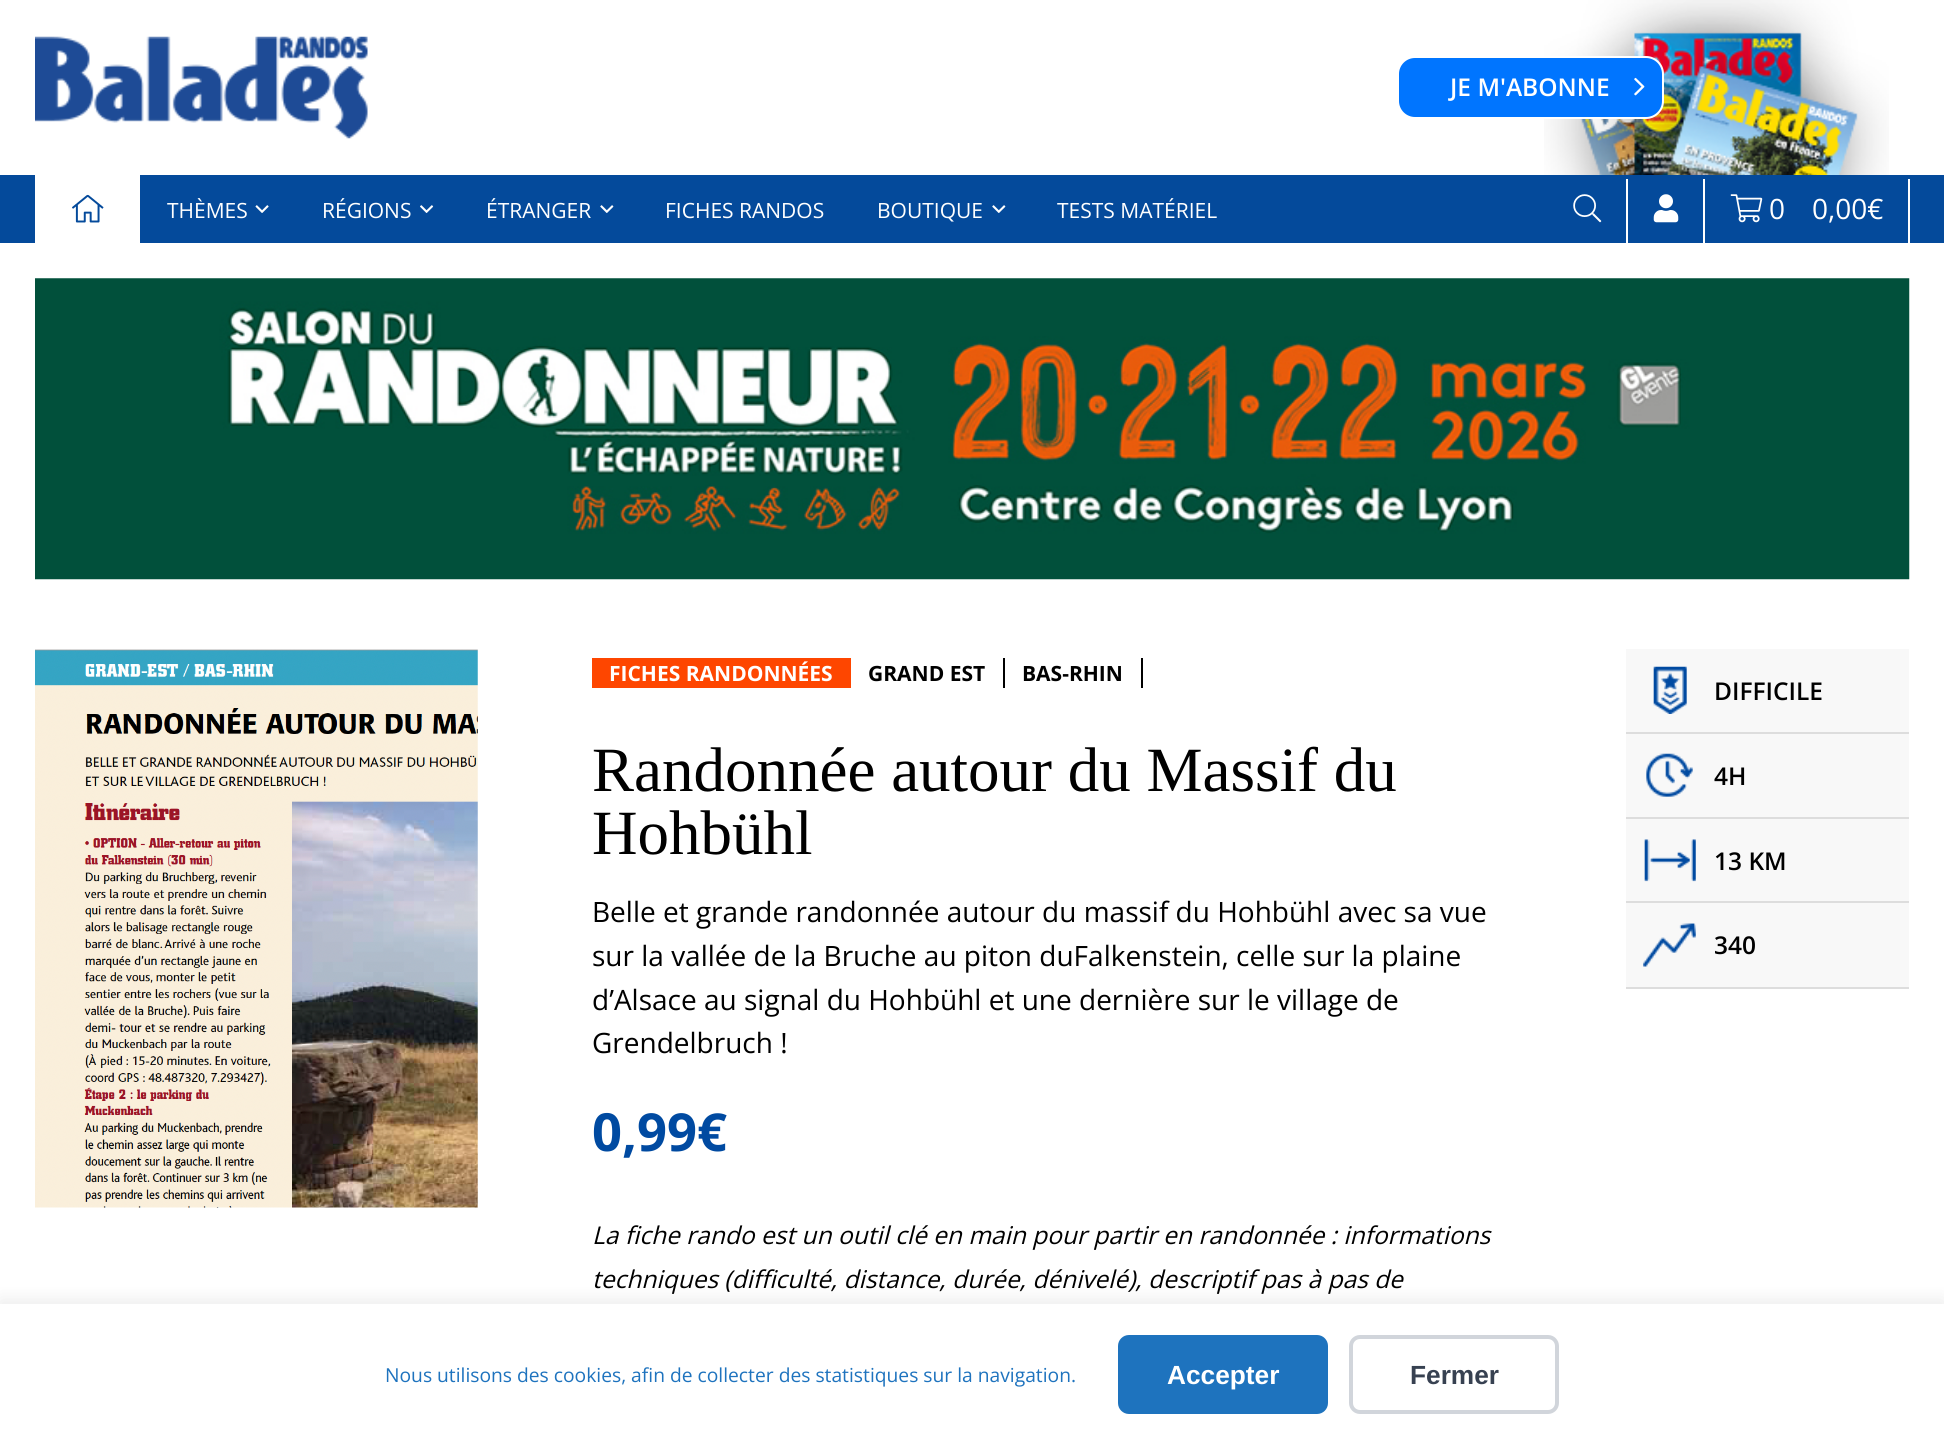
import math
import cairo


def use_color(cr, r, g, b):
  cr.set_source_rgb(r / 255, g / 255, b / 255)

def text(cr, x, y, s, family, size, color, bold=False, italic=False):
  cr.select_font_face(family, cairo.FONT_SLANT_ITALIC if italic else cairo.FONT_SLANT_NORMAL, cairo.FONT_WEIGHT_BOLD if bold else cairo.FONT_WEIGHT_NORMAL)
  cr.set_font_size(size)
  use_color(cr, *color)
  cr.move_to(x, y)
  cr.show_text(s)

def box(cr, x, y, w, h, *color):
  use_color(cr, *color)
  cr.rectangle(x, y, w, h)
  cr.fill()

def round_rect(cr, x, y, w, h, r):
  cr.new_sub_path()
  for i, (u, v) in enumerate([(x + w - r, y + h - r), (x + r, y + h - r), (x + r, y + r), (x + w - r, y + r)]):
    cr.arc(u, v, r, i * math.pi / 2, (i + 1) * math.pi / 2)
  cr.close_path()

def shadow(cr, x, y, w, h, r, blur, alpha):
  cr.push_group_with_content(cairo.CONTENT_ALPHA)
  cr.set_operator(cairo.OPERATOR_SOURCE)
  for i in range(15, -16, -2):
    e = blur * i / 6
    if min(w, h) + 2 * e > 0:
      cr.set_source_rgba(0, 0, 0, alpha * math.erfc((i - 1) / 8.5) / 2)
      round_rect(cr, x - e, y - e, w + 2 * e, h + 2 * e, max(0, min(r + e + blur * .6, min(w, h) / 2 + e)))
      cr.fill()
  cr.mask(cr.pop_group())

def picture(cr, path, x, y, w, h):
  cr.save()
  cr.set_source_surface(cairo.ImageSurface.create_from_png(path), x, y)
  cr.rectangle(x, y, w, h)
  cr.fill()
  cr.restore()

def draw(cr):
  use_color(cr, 255, 255, 255)
  cr.paint()
  picture(cr, "img_01.png", 35, 36, 333, 103)
  picture(cr, "img_03.png", 1544, 0, 345, 175)
  use_color(cr, 0, 117, 255)
  round_rect(cr, 1398, 57, 265, 61, 17)
  cr.fill_preserve()
  use_color(cr, 255, 255, 255)
  cr.stroke()
  picture(cr, "img_02.png", 1634, 77, 11, 19)
  box(cr, 0, 175, 1944, 68, 4, 74, 155)
  box(cr, 35, 175, 105, 68, 255, 255, 255)
  picture(cr, "img_04.png", 72, 194, 32, 29)
  picture(cr, "img_05.png", 255, 205, 14, 8)
  picture(cr, "img_06.png", 420, 205, 14, 8)
  picture(cr, "img_07.png", 600, 205, 14, 8)
  picture(cr, "img_07.png", 992, 205, 14, 8)
  picture(cr, "img_08.png", 1573, 194, 29, 29)
  box(cr, 1626, 179, 2, 70, 255, 255, 255)
  picture(cr, "img_09.png", 1653, 194, 26, 29)
  box(cr, 1703, 179, 2, 70, 255, 255, 255)
  picture(cr, "img_10.png", 1730, 194, 33, 29)
  box(cr, 1908, 179, 2, 70, 255, 255, 255)
  picture(cr, "img_11.png", 35, 278, 1875, 302)
  picture(cr, "img_12.png", 35, 649, 443, 559)
  box(cr, 592, 658, 259, 30, 254, 70, 0)
  box(cr, 1003, 658, 2, 30, 0, 0, 0)
  box(cr, 1141, 658, 2, 30, 0, 0, 0)
  box(cr, 1626, 649, 283, 338, 248, 248, 248)
  box(cr, 1626, 732, 283, 2, 221, 221, 221)
  picture(cr, "img_13.png", 1653, 666, 34, 48)
  box(cr, 1626, 817, 283, 2, 221, 221, 221)
  picture(cr, "img_14.png", 1646, 753, 47, 44)
  box(cr, 1626, 901, 283, 2, 221, 221, 221)
  picture(cr, "img_15.png", 1644, 839, 52, 43)
  box(cr, 1626, 987, 283, 2, 221, 221, 221)
  picture(cr, "img_16.png", 1643, 923, 53, 44)
  use_color(cr, 0, 0, 0)
  shadow(cr, 0, 1300, 1944, 142, 0, 9, 0.08)
  box(cr, 0, 1304, 1944, 140, 255, 255, 255)
  use_color(cr, 30, 115, 190)
  round_rect(cr, 1118, 1335, 210, 79, 11)
  cr.fill()
  round_rect(cr, 1351, 1337, 206, 75, 9)
  use_color(cr, 209, 213, 219)
  cr.set_line_width(4)
  cr.stroke()
  text(cr, 1450, 96, "JE M'ABONNE", "Open Sans SemiBold", 24.5, (255, 255, 255))
  text(cr, 167, 218, "THÈMES", "Open Sans", 21, (255, 255, 255))
  text(cr, 322, 218, "RÉGIONS", "Open Sans", 21, (255, 255, 255))
  text(cr, 486, 218, "ÉTRANGER", "Open Sans", 21, (255, 255, 255))
  text(cr, 665, 218, "FICHES RANDOS", "Open Sans", 21, (255, 255, 255))
  text(cr, 877, 218, "BOUTIQUE", "Open Sans", 21, (255, 255, 255))
  text(cr, 1057, 218, "TESTS MATÉRIEL", "Open Sans", 21, (255, 255, 255))
  text(cr, 1769, 219, "0", "Open Sans", 28, (255, 255, 255))
  text(cr, 1812, 219, "0,00€", "Open Sans", 28, (255, 255, 255))
  text(cr, 609, 681, "FICHES RANDONNÉES", "Open Sans", 21, (255, 255, 255), bold=True)
  text(cr, 868, 681, "GRAND EST", "Open Sans", 21, (0, 0, 0), bold=True)
  text(cr, 1022, 681, "BAS-RHIN", "Open Sans", 21, (0, 0, 0), bold=True)
  text(cr, 592, 791, "Randonnée autour du Massif du", "Tinos", 63, (0, 0, 0))
  text(cr, 592, 854, "Hohbühl", "Tinos", 63, (0, 0, 0))
  text(cr, 592, 922, "Belle et grande randonnée autour du massif du Hohbühl avec sa vue", "Open Sans", 28, (0, 0, 0))
  text(cr, 592, 966, "sur la vallée de la Bruche au piton duFalkenstein, celle sur la plaine", "Open Sans", 28, (0, 0, 0))
  text(cr, 592, 1010, "d’Alsace au signal du Hohbühl et une dernière sur le village de", "Open Sans", 28, (0, 0, 0))
  text(cr, 592, 1053, "Grendelbruch !", "Open Sans", 28, (0, 0, 0))
  text(cr, 592, 1151, "0,99€", "Open Sans", 52.5, (0, 74, 161), bold=True)
  text(cr, 592, 1244, "La fiche rando est un outil clé en main pour partir en randonnée : informations", "Open Sans", 24.5, (0, 0, 0), italic=True)
  text(cr, 592, 1288, "techniques (difficulté, distance, durée, dénivelé), descriptif pas à pas de", "Open Sans", 24.5, (0, 0, 0), italic=True)
  text(cr, 1714, 700, "DIFFICILE", "Open Sans SemiBold", 24.5, (0, 0, 0))
  text(cr, 1714, 785, "4H", "Open Sans SemiBold", 24.5, (0, 0, 0))
  text(cr, 1714, 870, "13 KM", "Open Sans SemiBold", 24.5, (0, 0, 0))
  text(cr, 1714, 954, "340", "Open Sans SemiBold", 24.5, (0, 0, 0))
  text(cr, 385, 1382, "Nous utilisons des cookies, afin de collecter des statistiques sur la navigation.", "Open Sans", 19.25, (30, 115, 190))
  text(cr, 1167, 1384, "Accepter", "Liberation Sans", 26.25, (255, 255, 255), bold=True)
  text(cr, 1410, 1384, "Fermer", "Liberation Sans", 26.25, (55, 65, 81), bold=True)


surface = cairo.ImageSurface(cairo.FORMAT_RGB24, 1944, 1444)
cr = cairo.Context(surface)
options = cairo.FontOptions()
options.set_hint_metrics(cairo.HINT_METRICS_OFF)
options.set_hint_style(cairo.HINT_STYLE_NONE)
cr.set_font_options(options)
cr.set_miter_limit(4)
draw(cr)
surface.write_to_png("out.png")
